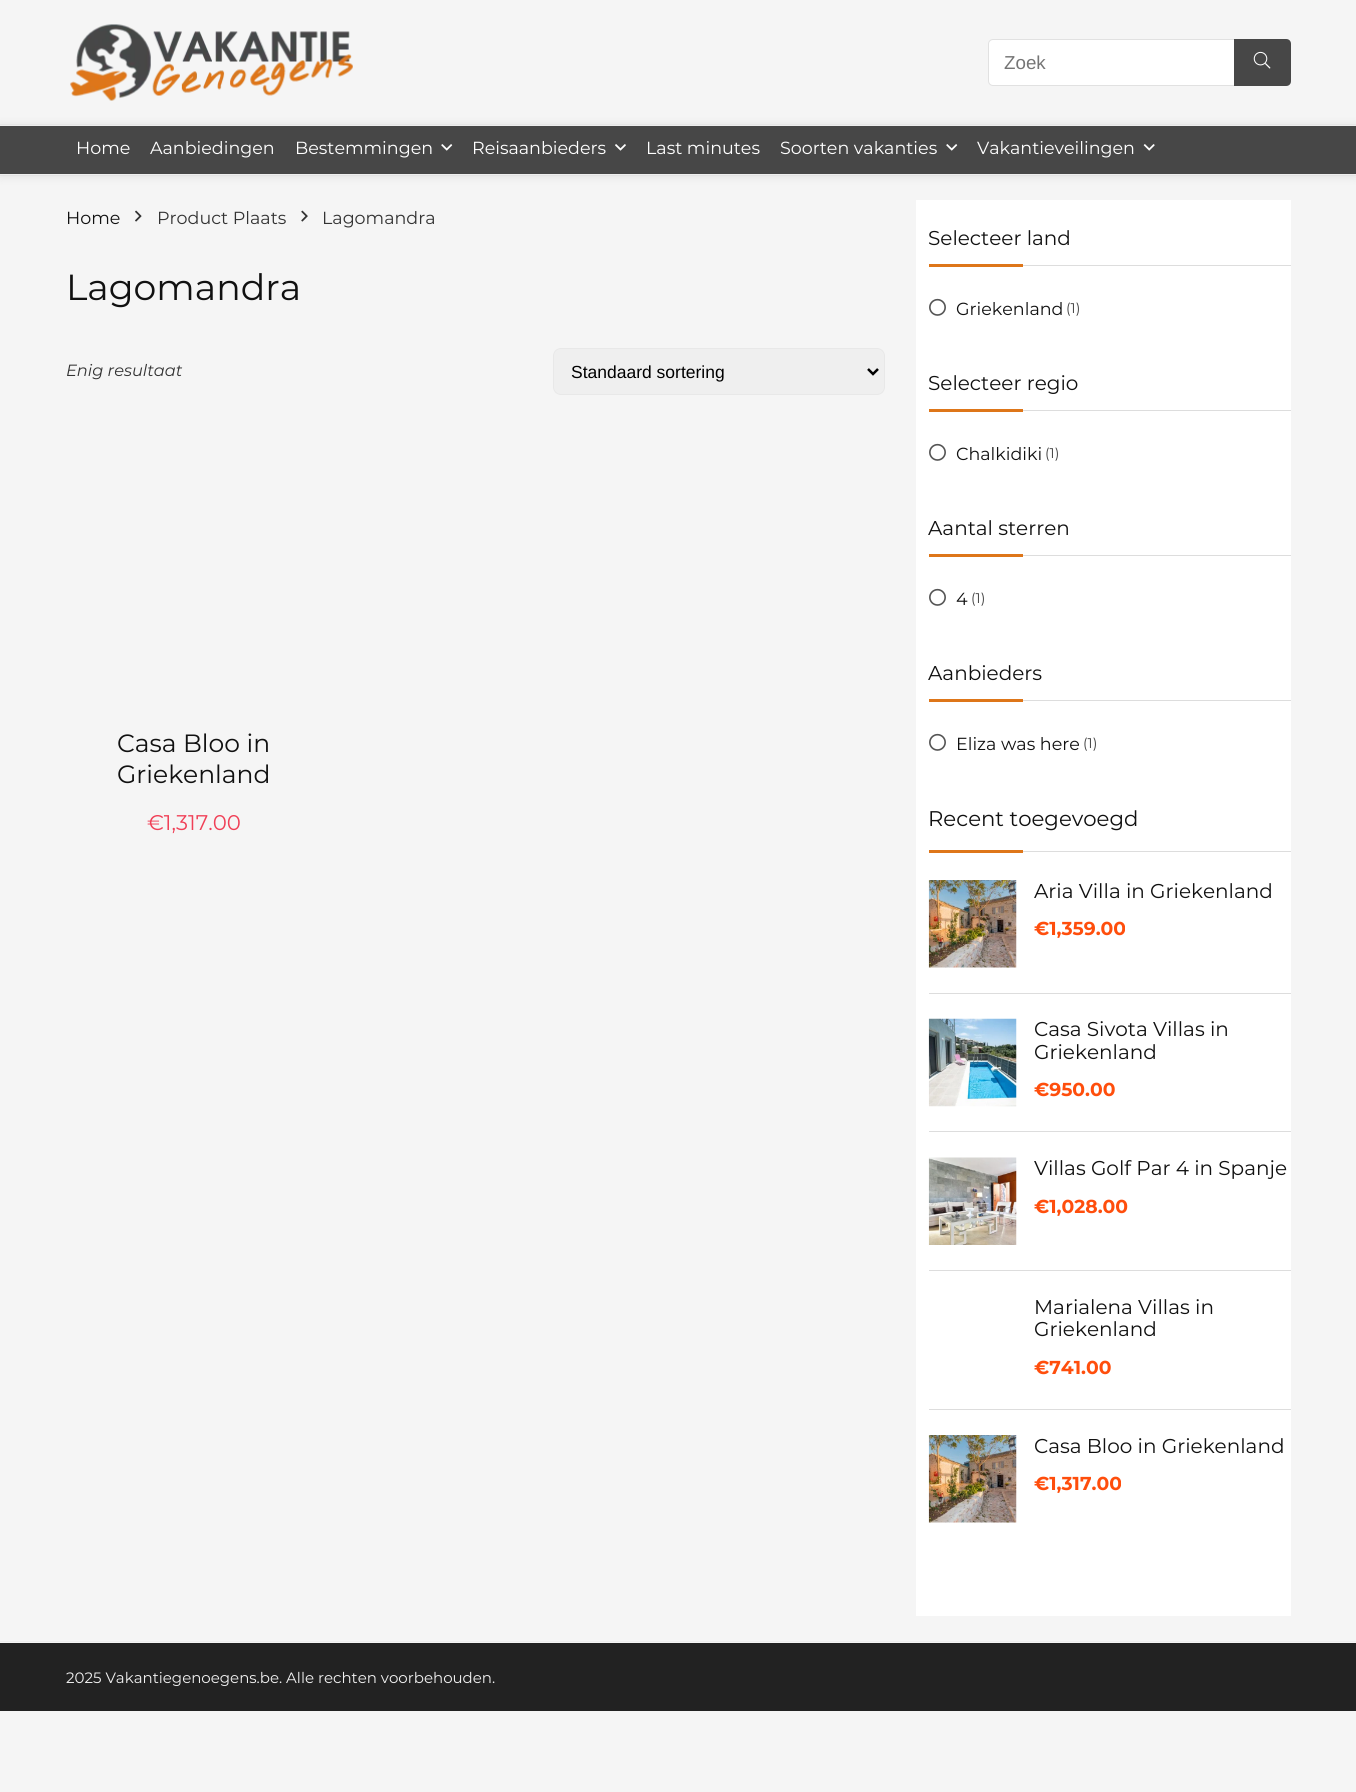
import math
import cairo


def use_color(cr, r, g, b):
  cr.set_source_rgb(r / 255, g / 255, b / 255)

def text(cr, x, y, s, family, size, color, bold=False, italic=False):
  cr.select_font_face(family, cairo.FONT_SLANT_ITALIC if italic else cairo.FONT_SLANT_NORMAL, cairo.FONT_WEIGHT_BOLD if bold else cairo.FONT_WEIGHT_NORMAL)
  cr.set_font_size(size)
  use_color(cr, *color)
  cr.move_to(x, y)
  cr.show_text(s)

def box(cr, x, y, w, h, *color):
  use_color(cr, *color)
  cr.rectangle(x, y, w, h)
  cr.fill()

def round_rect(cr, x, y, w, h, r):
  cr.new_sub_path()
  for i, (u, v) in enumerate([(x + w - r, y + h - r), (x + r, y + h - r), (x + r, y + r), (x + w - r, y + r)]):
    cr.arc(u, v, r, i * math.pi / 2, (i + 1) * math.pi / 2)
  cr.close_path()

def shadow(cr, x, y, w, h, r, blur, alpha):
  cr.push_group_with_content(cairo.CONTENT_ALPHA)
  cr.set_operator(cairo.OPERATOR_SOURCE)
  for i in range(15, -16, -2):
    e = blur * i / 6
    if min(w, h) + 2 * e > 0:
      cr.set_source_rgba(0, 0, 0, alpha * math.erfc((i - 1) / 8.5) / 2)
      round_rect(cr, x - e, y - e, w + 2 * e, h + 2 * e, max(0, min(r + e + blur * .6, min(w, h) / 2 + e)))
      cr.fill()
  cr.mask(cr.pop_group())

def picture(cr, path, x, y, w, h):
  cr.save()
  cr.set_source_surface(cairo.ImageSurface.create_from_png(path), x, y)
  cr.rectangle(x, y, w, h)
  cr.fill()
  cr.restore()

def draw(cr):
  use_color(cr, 245, 245, 245)
  cr.paint()
  picture(cr, "img_01.png", 70, 24, 283, 77)
  use_color(cr, 255, 255, 255)
  round_rect(cr, 988.5, 39.5, 302, 46, 4.5)
  cr.fill_preserve()
  use_color(cr, 225, 225, 225)
  cr.set_line_width(1)
  cr.stroke()
  use_color(cr, 71, 71, 71)
  cr.new_path()
  cr.move_to(1234, 39)
  cr.line_to(1286, 39)
  cr.curve_to(1289, 39, 1291, 41, 1291, 44)
  cr.line_to(1291, 81)
  cr.curve_to(1291, 84, 1289, 86, 1286, 86)
  cr.line_to(1234, 86)
  cr.close_path()
  cr.fill()
  picture(cr, "img_02.png", 1253, 51, 18, 18)
  cr.rectangle(-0.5, 124.5, 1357, 51)
  use_color(cr, 238, 238, 238)
  cr.stroke()
  use_color(cr, 0, 0, 0)
  shadow(cr, 0, 126, 1356, 50, 0, 5, 0.1)
  box(cr, 0, 126, 1356, 48, 71, 71, 71)
  box(cr, 0, 125, 1356, 1, 238, 238, 238)
  box(cr, 0, 174, 1356, 1, 238, 238, 238)
  picture(cr, "img_03.png", 441, 144, 12, 7)
  picture(cr, "img_04.png", 615, 144, 11, 7)
  picture(cr, "img_03.png", 946, 144, 12, 7)
  picture(cr, "img_05.png", 1143, 144, 12, 7)
  picture(cr, "img_06.png", 135, 210, 7, 12)
  picture(cr, "img_07.png", 301, 210, 7, 12)
  use_color(cr, 239, 239, 239)
  round_rect(cr, 553.5, 348.5, 331, 46, 7.5)
  cr.fill_preserve()
  use_color(cr, 232, 232, 232)
  cr.stroke()
  cr.new_path()
  cr.move_to(868, 369)
  cr.line_to(873, 374)
  cr.line_to(878, 369)
  use_color(cr, 0, 0, 0)
  cr.set_line_width(2.5)
  cr.stroke()
  box(cr, 916, 200, 375, 1416, 255, 255, 255)
  box(cr, 1023, 265, 268, 1, 221, 221, 221)
  box(cr, 929, 264, 94, 3, 222, 118, 25)
  picture(cr, "img_08.png", 929, 298, 17, 18)
  box(cr, 1023, 410, 268, 1, 221, 221, 221)
  box(cr, 929, 409, 94, 3, 222, 118, 25)
  picture(cr, "img_08.png", 929, 443, 17, 18)
  box(cr, 1023, 555, 268, 1, 221, 221, 221)
  box(cr, 929, 554, 94, 3, 222, 118, 25)
  picture(cr, "img_08.png", 929, 588, 17, 18)
  box(cr, 1023, 700, 268, 1, 221, 221, 221)
  box(cr, 929, 699, 94, 3, 222, 118, 25)
  picture(cr, "img_08.png", 929, 733, 17, 18)
  box(cr, 1023, 851, 268, 1, 221, 221, 221)
  box(cr, 929, 850, 94, 3, 222, 118, 25)
  box(cr, 929, 993, 362, 1, 221, 221, 221)
  picture(cr, "img_09.png", 928, 880, 89, 88)
  box(cr, 929, 1131, 362, 1, 221, 221, 221)
  picture(cr, "img_10.png", 928, 1018, 89, 89)
  box(cr, 929, 1270, 362, 1, 221, 221, 221)
  picture(cr, "img_11.png", 928, 1157, 89, 88)
  box(cr, 929, 1409, 362, 1, 221, 221, 221)
  picture(cr, "img_12.png", 928, 1435, 89, 88)
  box(cr, 0, 1641, 1356, 1, 238, 238, 238)
  box(cr, 0, 1643, 1356, 68, 34, 34, 34)
  text(cr, 1004, 69, "Zoek", "Liberation Sans", 18.75, (117, 117, 117))
  text(cr, 76, 154, "Home", "Montserrat", 17.5, (255, 255, 255))
  text(cr, 150, 154, "Aanbiedingen", "Montserrat", 17.5, (255, 255, 255))
  text(cr, 295, 154, "Bestemmingen", "Montserrat", 17.5, (255, 255, 255))
  text(cr, 472, 154, "Reisaanbieders", "Montserrat", 17.5, (255, 255, 255))
  text(cr, 646, 154, "Last minutes", "Montserrat", 17.5, (255, 255, 255))
  text(cr, 780, 154, "Soorten vakanties", "Montserrat", 17.5, (255, 255, 255))
  text(cr, 977, 154, "Vakantieveilingen", "Montserrat", 17.5, (255, 255, 255))
  text(cr, 66, 224, "Home", "Montserrat", 17.5, (17, 17, 17))
  text(cr, 157, 224, "Product Plaats", "Montserrat", 17.5, (51, 51, 51))
  text(cr, 322, 224, "Lagomandra", "Montserrat", 17.5, (51, 51, 51))
  text(cr, 66, 300, "Lagomandra", "Montserrat", 36.25, (17, 17, 17))
  text(cr, 66, 376, "Enig resultaat", "Montserrat", 16.25, (51, 51, 51), italic=True)
  text(cr, 571, 378, "Standaard sortering", "Liberation Sans", 17.5, (0, 0, 0))
  text(cr, 117, 752, "Casa Bloo in", "Montserrat", 25, (17, 17, 17))
  text(cr, 117, 783, "Griekenland", "Montserrat", 25, (17, 17, 17))
  text(cr, 147, 830, "€1,317.00", "Montserrat", 21.25, (240, 64, 87))
  text(cr, 928, 245, "Selecteer land", "Montserrat", 20, (17, 17, 17))
  text(cr, 956, 315, "Griekenland", "Montserrat", 17.5, (17, 17, 17))
  text(cr, 1066, 313, "(1)", "Montserrat", 14, (65, 65, 65))
  text(cr, 928, 390, "Selecteer regio", "Montserrat", 20, (17, 17, 17))
  text(cr, 956, 460, "Chalkidiki", "Montserrat", 17.5, (17, 17, 17))
  text(cr, 1045, 458, "(1)", "Montserrat", 14, (65, 65, 65))
  text(cr, 928, 535, "Aantal sterren", "Montserrat", 20, (17, 17, 17))
  text(cr, 956, 605, "4", "Montserrat", 17.5, (17, 17, 17))
  text(cr, 971, 603, "(1)", "Montserrat", 14, (65, 65, 65))
  text(cr, 928, 680, "Aanbieders", "Montserrat", 20, (17, 17, 17))
  text(cr, 956, 750, "Eliza was here", "Montserrat", 17.5, (17, 17, 17))
  text(cr, 1083, 748, "(1)", "Montserrat", 14, (65, 65, 65))
  text(cr, 928, 826, "Recent toegevoegd", "Montserrat", 21.25, (17, 17, 17))
  text(cr, 1034, 898, "Aria Villa in Griekenland", "Montserrat", 20, (17, 17, 17))
  text(cr, 1034, 935, "€1,359.00", "Montserrat", 18.75, (255, 78, 12), bold=True)
  text(cr, 1034, 1036, "Casa Sivota Villas in", "Montserrat", 20, (17, 17, 17))
  text(cr, 1034, 1059, "Griekenland", "Montserrat", 20, (17, 17, 17))
  text(cr, 1034, 1096, "€950.00", "Montserrat", 18.75, (255, 78, 12), bold=True)
  text(cr, 1034, 1175, "Villas Golf Par 4 in Spanje", "Montserrat", 20, (17, 17, 17))
  text(cr, 1034, 1213, "€1,028.00", "Montserrat", 18.75, (255, 78, 12), bold=True)
  text(cr, 1034, 1314, "Marialena Villas in", "Montserrat", 20, (17, 17, 17))
  text(cr, 1034, 1336, "Griekenland", "Montserrat", 20, (17, 17, 17))
  text(cr, 1034, 1374, "€741.00", "Montserrat", 18.75, (255, 78, 12), bold=True)
  text(cr, 1034, 1453, "Casa Bloo in Griekenland", "Montserrat", 20, (17, 17, 17))
  text(cr, 1034, 1490, "€1,317.00", "Montserrat", 18.75, (255, 78, 12), bold=True)
  text(cr, 66, 1683, "2025 Vakantiegenoegens.be. Alle rechten voorbehouden.", "Montserrat", 15, (241, 241, 241))


surface = cairo.ImageSurface(cairo.FORMAT_RGB24, 1356, 1792)
cr = cairo.Context(surface)
options = cairo.FontOptions()
options.set_hint_metrics(cairo.HINT_METRICS_OFF)
options.set_hint_style(cairo.HINT_STYLE_NONE)
cr.set_font_options(options)
cr.set_miter_limit(4)
draw(cr)
surface.write_to_png("out.png")
